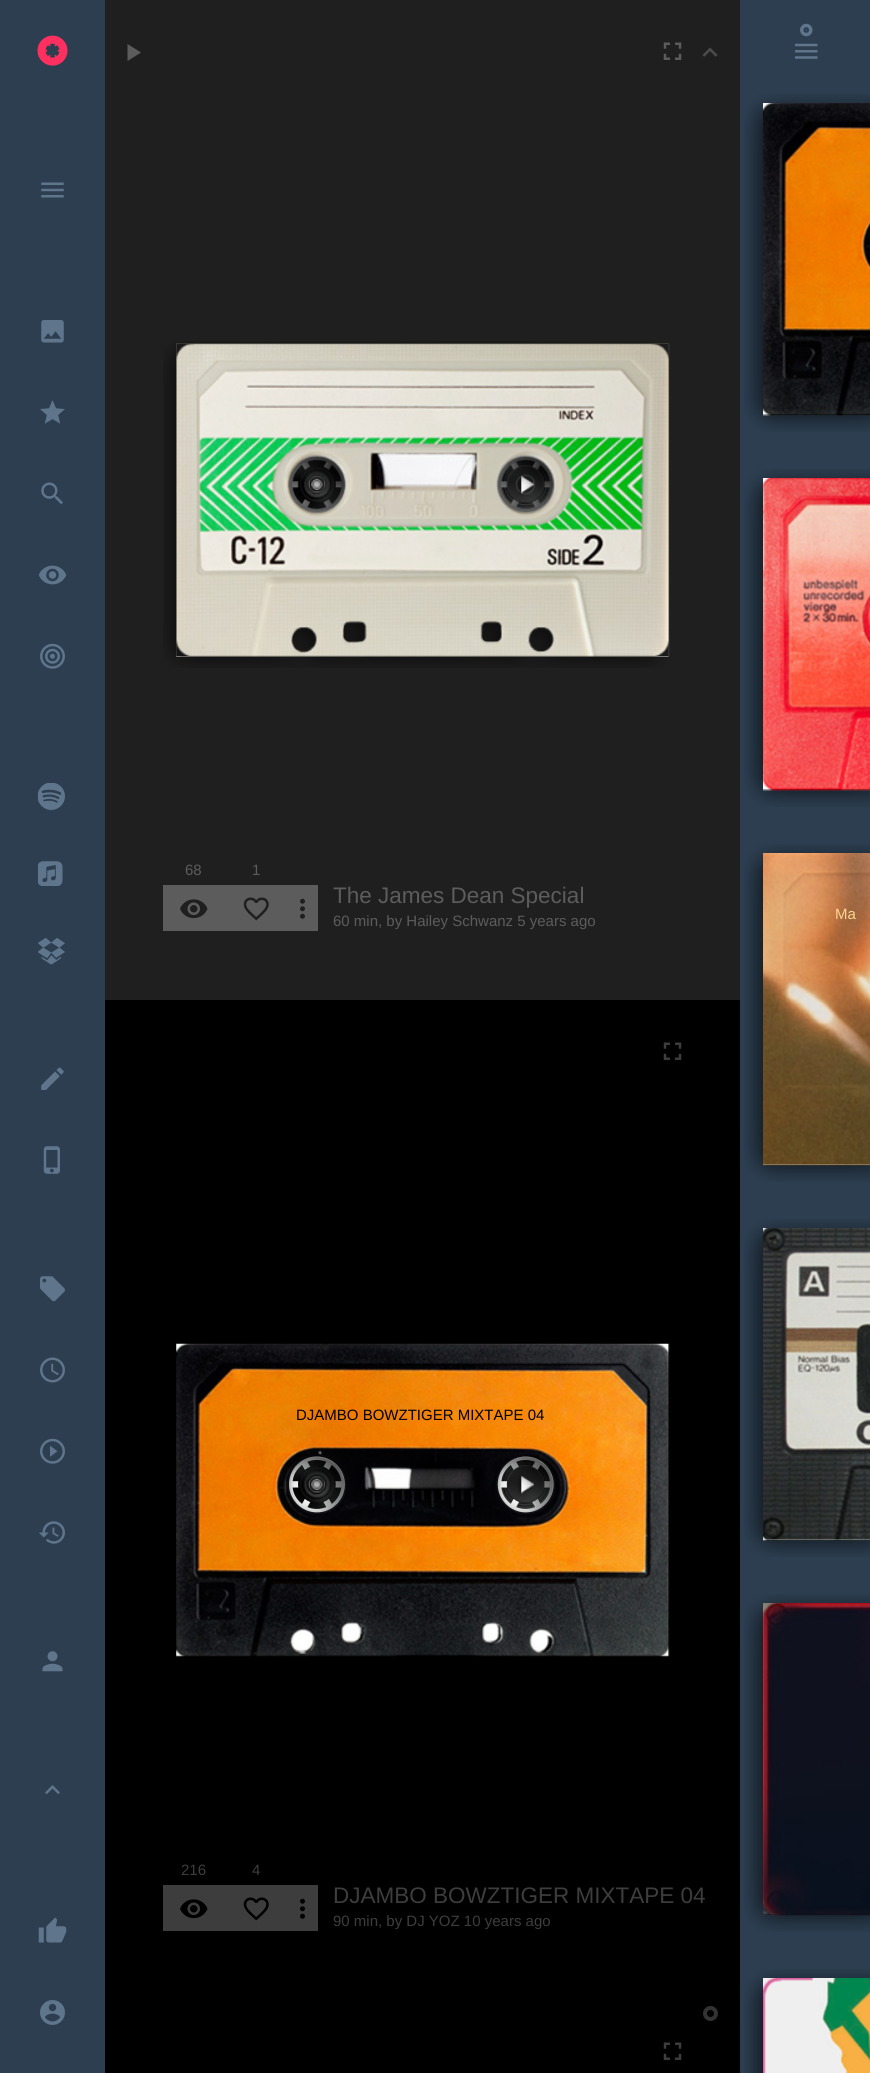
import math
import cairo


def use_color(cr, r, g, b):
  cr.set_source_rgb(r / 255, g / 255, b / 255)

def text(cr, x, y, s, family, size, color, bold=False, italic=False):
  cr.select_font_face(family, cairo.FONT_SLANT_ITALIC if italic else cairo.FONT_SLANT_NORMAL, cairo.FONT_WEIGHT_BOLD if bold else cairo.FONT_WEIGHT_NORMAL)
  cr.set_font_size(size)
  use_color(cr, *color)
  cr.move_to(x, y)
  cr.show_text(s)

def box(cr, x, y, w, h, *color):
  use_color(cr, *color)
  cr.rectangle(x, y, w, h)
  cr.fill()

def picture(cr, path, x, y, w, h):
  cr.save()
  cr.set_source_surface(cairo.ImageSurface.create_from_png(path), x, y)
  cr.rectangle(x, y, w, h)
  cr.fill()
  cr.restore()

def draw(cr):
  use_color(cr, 44, 62, 80)
  cr.paint()
  box(cr, 105, 0, 635, 1000, 31, 31, 31)
  picture(cr, "img_23.png", 163, 341, 507, 327)
  picture(cr, "img_24.png", 176, 343, 494, 314)
  picture(cr, "img_01.png", 176, 343, 493, 314)
  picture(cr, "img_02.png", 37, 35, 31, 31)
  picture(cr, "img_03.png", 41, 182, 23, 16)
  picture(cr, "img_04.png", 41, 320, 23, 23)
  picture(cr, "img_05.png", 40, 400, 25, 24)
  picture(cr, "img_06.png", 41, 482, 22, 23)
  picture(cr, "img_07.png", 38, 565, 29, 20)
  picture(cr, "img_08.png", 40, 643, 25, 26)
  picture(cr, "img_09.png", 38, 783, 27, 27)
  picture(cr, "img_10.png", 38, 861, 25, 25)
  picture(cr, "img_11.png", 38, 938, 27, 27)
  picture(cr, "img_12.png", 41, 1067, 23, 23)
  picture(cr, "img_13.png", 43, 1146, 17, 28)
  picture(cr, "img_14.png", 40, 1276, 25, 26)
  picture(cr, "img_15.png", 40, 1357, 25, 26)
  picture(cr, "img_16.png", 40, 1438, 25, 26)
  picture(cr, "img_17.png", 39, 1521, 26, 23)
  picture(cr, "img_18.png", 42, 1651, 21, 21)
  picture(cr, "img_19.png", 45, 1785, 15, 10)
  picture(cr, "img_20.png", 38, 1917, 29, 26)
  picture(cr, "img_21.png", 40, 2000, 25, 25)
  use_color(cr, 92, 92, 92)
  cr.new_path()
  cr.move_to(127.5, 44)
  cr.line_to(141, 52.5)
  cr.line_to(127.5, 61)
  cr.close_path()
  cr.fill()
  picture(cr, "img_22.png", 702, 47, 16, 10)
  picture(cr, "img_25.png", 663, 42, 19, 18)
  box(cr, 163, 885, 155, 45, 92, 92, 92)
  picture(cr, "img_26.png", 180, 899, 28, 20)
  picture(cr, "img_27.png", 243, 897, 26, 24)
  picture(cr, "img_28.png", 300, 898, 5, 21)
  box(cr, 163, 930, 155, 1, 92, 92, 92)
  box(cr, 105, 1000, 635, 1073, 0, 0, 0)
  picture(cr, "img_29.png", 176, 1343, 494, 314)
  picture(cr, "img_32.png", 289, 1458, 56, 54)
  picture(cr, "img_31.png", 289, 1456, 56, 57)
  picture(cr, "img_30.png", 287, 1456, 59, 58)
  picture(cr, "img_35.png", 498, 1458, 52, 51)
  picture(cr, "img_34.png", 497, 1456, 57, 57)
  picture(cr, "img_33.png", 496, 1456, 59, 58)
  picture(cr, "img_36.png", 663, 1042, 19, 18)
  box(cr, 163, 1885, 155, 45, 61, 61, 61)
  picture(cr, "img_37.png", 180, 1899, 28, 20)
  picture(cr, "img_38.png", 243, 1897, 26, 24)
  picture(cr, "img_39.png", 300, 1898, 5, 21)
  box(cr, 163, 1930, 155, 1, 61, 61, 61)
  picture(cr, "img_36.png", 663, 2042, 19, 18)
  cr.arc(710.5, 2013.5, 5.5, 0, 2 * math.pi)
  use_color(cr, 51, 51, 51)
  cr.set_line_width(4)
  cr.stroke()
  picture(cr, "img_40.png", 800, 23, 13, 14)
  picture(cr, "img_41.png", 795, 43, 23, 16)
  picture(cr, "img_42.png", 744, 94, 126, 338)
  box(cr, 763, 414, 107, 1, 0, 0, 0)
  picture(cr, "img_43.png", 763, 103, 107, 313)
  picture(cr, "img_42.png", 744, 469, 126, 338)
  box(cr, 763, 789, 107, 1, 0, 0, 0)
  picture(cr, "img_44.png", 763, 478, 107, 313)
  picture(cr, "img_42.png", 744, 844, 126, 338)
  box(cr, 763, 1164, 107, 1, 213, 190, 171)
  picture(cr, "img_45.png", 763, 853, 107, 313)
  picture(cr, "img_46.png", 744, 1219, 126, 338)
  box(cr, 763, 1539, 107, 1, 195, 191, 182)
  picture(cr, "img_47.png", 763, 1228, 107, 313)
  picture(cr, "img_42.png", 744, 1594, 126, 338)
  box(cr, 763, 1914, 107, 1, 17, 14, 27)
  picture(cr, "img_48.png", 763, 1603, 107, 313)
  picture(cr, "img_49.png", 744, 1969, 126, 104)
  picture(cr, "img_50.png", 763, 1978, 107, 95)
  text(cr, 185, 875, "68", "Liberation Sans", 15, (92, 92, 92))
  text(cr, 252, 875, "1", "Liberation Sans", 15, (92, 92, 92))
  text(cr, 333, 903, "The James Dean Special", "Liberation Sans", 22.5, (92, 92, 92))
  text(cr, 333, 926, "60 min, by Hailey Schwanz 5 years ago", "Liberation Sans", 15, (92, 92, 92))
  text(cr, 296, 1420, "DJAMBO BOWZTIGER MIXTAPE 04", "Liberation Sans", 15, (0, 0, 0))
  text(cr, 181, 1875, "216", "Liberation Sans", 15, (61, 61, 61))
  text(cr, 252, 1875, "4", "Liberation Sans", 15, (61, 61, 61))
  text(cr, 333, 1903, "DJAMBO BOWZTIGER MIXTAPE 04", "Liberation Sans", 22.5, (61, 61, 61))
  text(cr, 333, 1926, "90 min, by DJ YOZ 10 years ago", "Liberation Sans", 15, (61, 61, 61))
  text(cr, 835, 919, "Ma", "Liberation Sans", 15, (252, 215, 146))


surface = cairo.ImageSurface(cairo.FORMAT_RGB24, 870, 2073)
cr = cairo.Context(surface)
options = cairo.FontOptions()
options.set_hint_metrics(cairo.HINT_METRICS_OFF)
options.set_hint_style(cairo.HINT_STYLE_NONE)
cr.set_font_options(options)
cr.set_miter_limit(4)
draw(cr)
surface.write_to_png("out.png")
